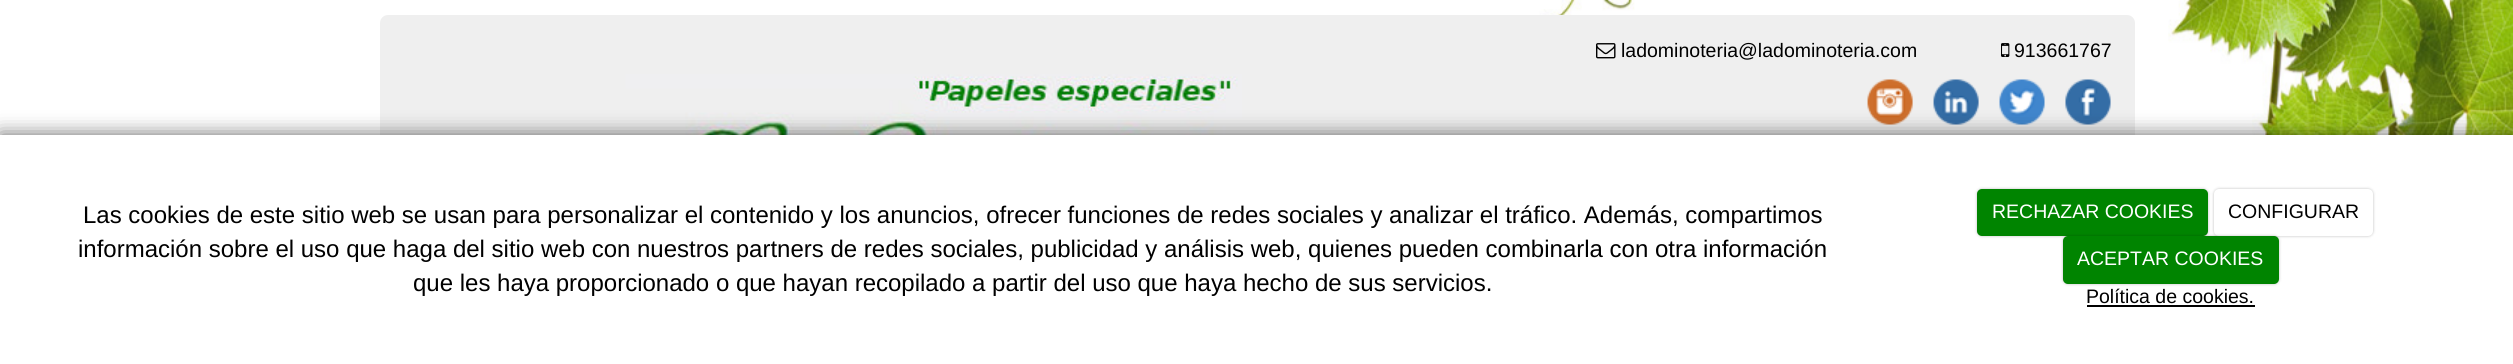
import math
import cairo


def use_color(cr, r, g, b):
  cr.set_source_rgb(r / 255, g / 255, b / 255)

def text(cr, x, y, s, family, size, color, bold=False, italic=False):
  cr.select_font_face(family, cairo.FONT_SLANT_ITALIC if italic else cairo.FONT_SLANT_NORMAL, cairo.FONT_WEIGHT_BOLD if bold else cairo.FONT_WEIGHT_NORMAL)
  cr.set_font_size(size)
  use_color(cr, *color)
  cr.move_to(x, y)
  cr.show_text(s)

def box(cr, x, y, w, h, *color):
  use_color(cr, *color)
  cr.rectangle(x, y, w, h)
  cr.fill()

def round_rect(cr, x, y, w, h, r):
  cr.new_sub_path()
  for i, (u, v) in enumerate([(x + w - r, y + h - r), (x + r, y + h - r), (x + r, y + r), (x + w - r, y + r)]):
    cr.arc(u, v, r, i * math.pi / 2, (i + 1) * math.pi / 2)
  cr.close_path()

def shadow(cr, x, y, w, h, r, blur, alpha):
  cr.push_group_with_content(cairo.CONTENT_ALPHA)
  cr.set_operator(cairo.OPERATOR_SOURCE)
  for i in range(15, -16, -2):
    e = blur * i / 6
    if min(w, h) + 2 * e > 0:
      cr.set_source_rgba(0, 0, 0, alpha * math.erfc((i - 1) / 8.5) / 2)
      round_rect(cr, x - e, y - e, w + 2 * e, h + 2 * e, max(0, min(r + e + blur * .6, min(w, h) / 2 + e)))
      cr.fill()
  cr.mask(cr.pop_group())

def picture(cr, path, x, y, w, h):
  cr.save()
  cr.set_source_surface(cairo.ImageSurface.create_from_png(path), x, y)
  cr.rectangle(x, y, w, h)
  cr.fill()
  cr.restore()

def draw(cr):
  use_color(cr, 255, 255, 255)
  cr.paint()
  picture(cr, "img_01.png", 0, 0, 2513, 135)
  use_color(cr, 239, 239, 239)
  round_rect(cr, 380, 15, 1755, 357, 8)
  cr.fill()
  picture(cr, "img_02.png", 1596, 43, 20, 16)
  picture(cr, "img_03.png", 2001, 43, 9, 14)
  picture(cr, "img_04.png", 1867, 79, 46, 46)
  picture(cr, "img_05.png", 1933, 79, 46, 46)
  picture(cr, "img_06.png", 1999, 79, 46, 46)
  picture(cr, "img_07.png", 2065, 79, 46, 46)
  picture(cr, "img_08.png", 625, 74, 617, 61)
  use_color(cr, 0, 0, 0)
  shadow(cr, 0, 135, 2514, 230, 0, 10, 0.6)
  box(cr, 0, 135, 2513, 229, 255, 255, 255)
  use_color(cr, 0, 0, 0)
  shadow(cr, 1977, 189, 231, 47, 5, 1.5, 0.25)
  use_color(cr, 0, 132, 0)
  round_rect(cr, 1977, 189, 231, 47, 5)
  cr.fill()
  use_color(cr, 0, 0, 0)
  shadow(cr, 2214, 189, 159, 47, 5, 1.5, 0.25)
  use_color(cr, 255, 255, 255)
  round_rect(cr, 2214, 189, 159, 47, 5)
  cr.fill()
  use_color(cr, 0, 0, 0)
  shadow(cr, 2063, 236, 216, 48, 5, 1.5, 0.25)
  use_color(cr, 0, 132, 0)
  round_rect(cr, 2063, 236, 216, 48, 5)
  cr.fill()
  box(cr, 2087, 305, 168, 2, 0, 0, 0)
  text(cr, 1621, 57, "ladominoteria@ladominoteria.com", "Liberation Sans", 19.5, (0, 0, 0))
  text(cr, 2014, 57, "913661767", "Liberation Sans", 19.5, (0, 0, 0))
  text(cr, 83, 223, "Las cookies de este sitio web se usan para personalizar el contenido y los anuncios, ofrecer funciones de redes sociales y analizar el tráfico. Además, compartimos", "Liberation Sans", 24, (0, 0, 0))
  text(cr, 78, 257, "información sobre el uso que haga del sitio web con nuestros partners de redes sociales, publicidad y análisis web, quienes pueden combinarla con otra información", "Liberation Sans", 24, (0, 0, 0))
  text(cr, 413, 291, "que les haya proporcionado o que hayan recopilado a partir del uso que haya hecho de sus servicios.", "Liberation Sans", 24, (0, 0, 0))
  text(cr, 1992, 218, "RECHAZAR COOKIES", "Liberation Sans", 19.5, (255, 255, 255))
  text(cr, 2228, 218, "CONFIGURAR", "Liberation Sans", 19.5, (0, 0, 0))
  text(cr, 2077, 265, "ACEPTAR COOKIES", "Liberation Sans", 19.5, (255, 255, 255))
  text(cr, 2086, 303, "Política de cookies.", "Liberation Sans", 19.5, (0, 0, 0))


surface = cairo.ImageSurface(cairo.FORMAT_RGB24, 2513, 364)
cr = cairo.Context(surface)
options = cairo.FontOptions()
options.set_hint_metrics(cairo.HINT_METRICS_OFF)
options.set_hint_style(cairo.HINT_STYLE_NONE)
cr.set_font_options(options)
cr.set_miter_limit(4)
draw(cr)
surface.write_to_png("out.png")
